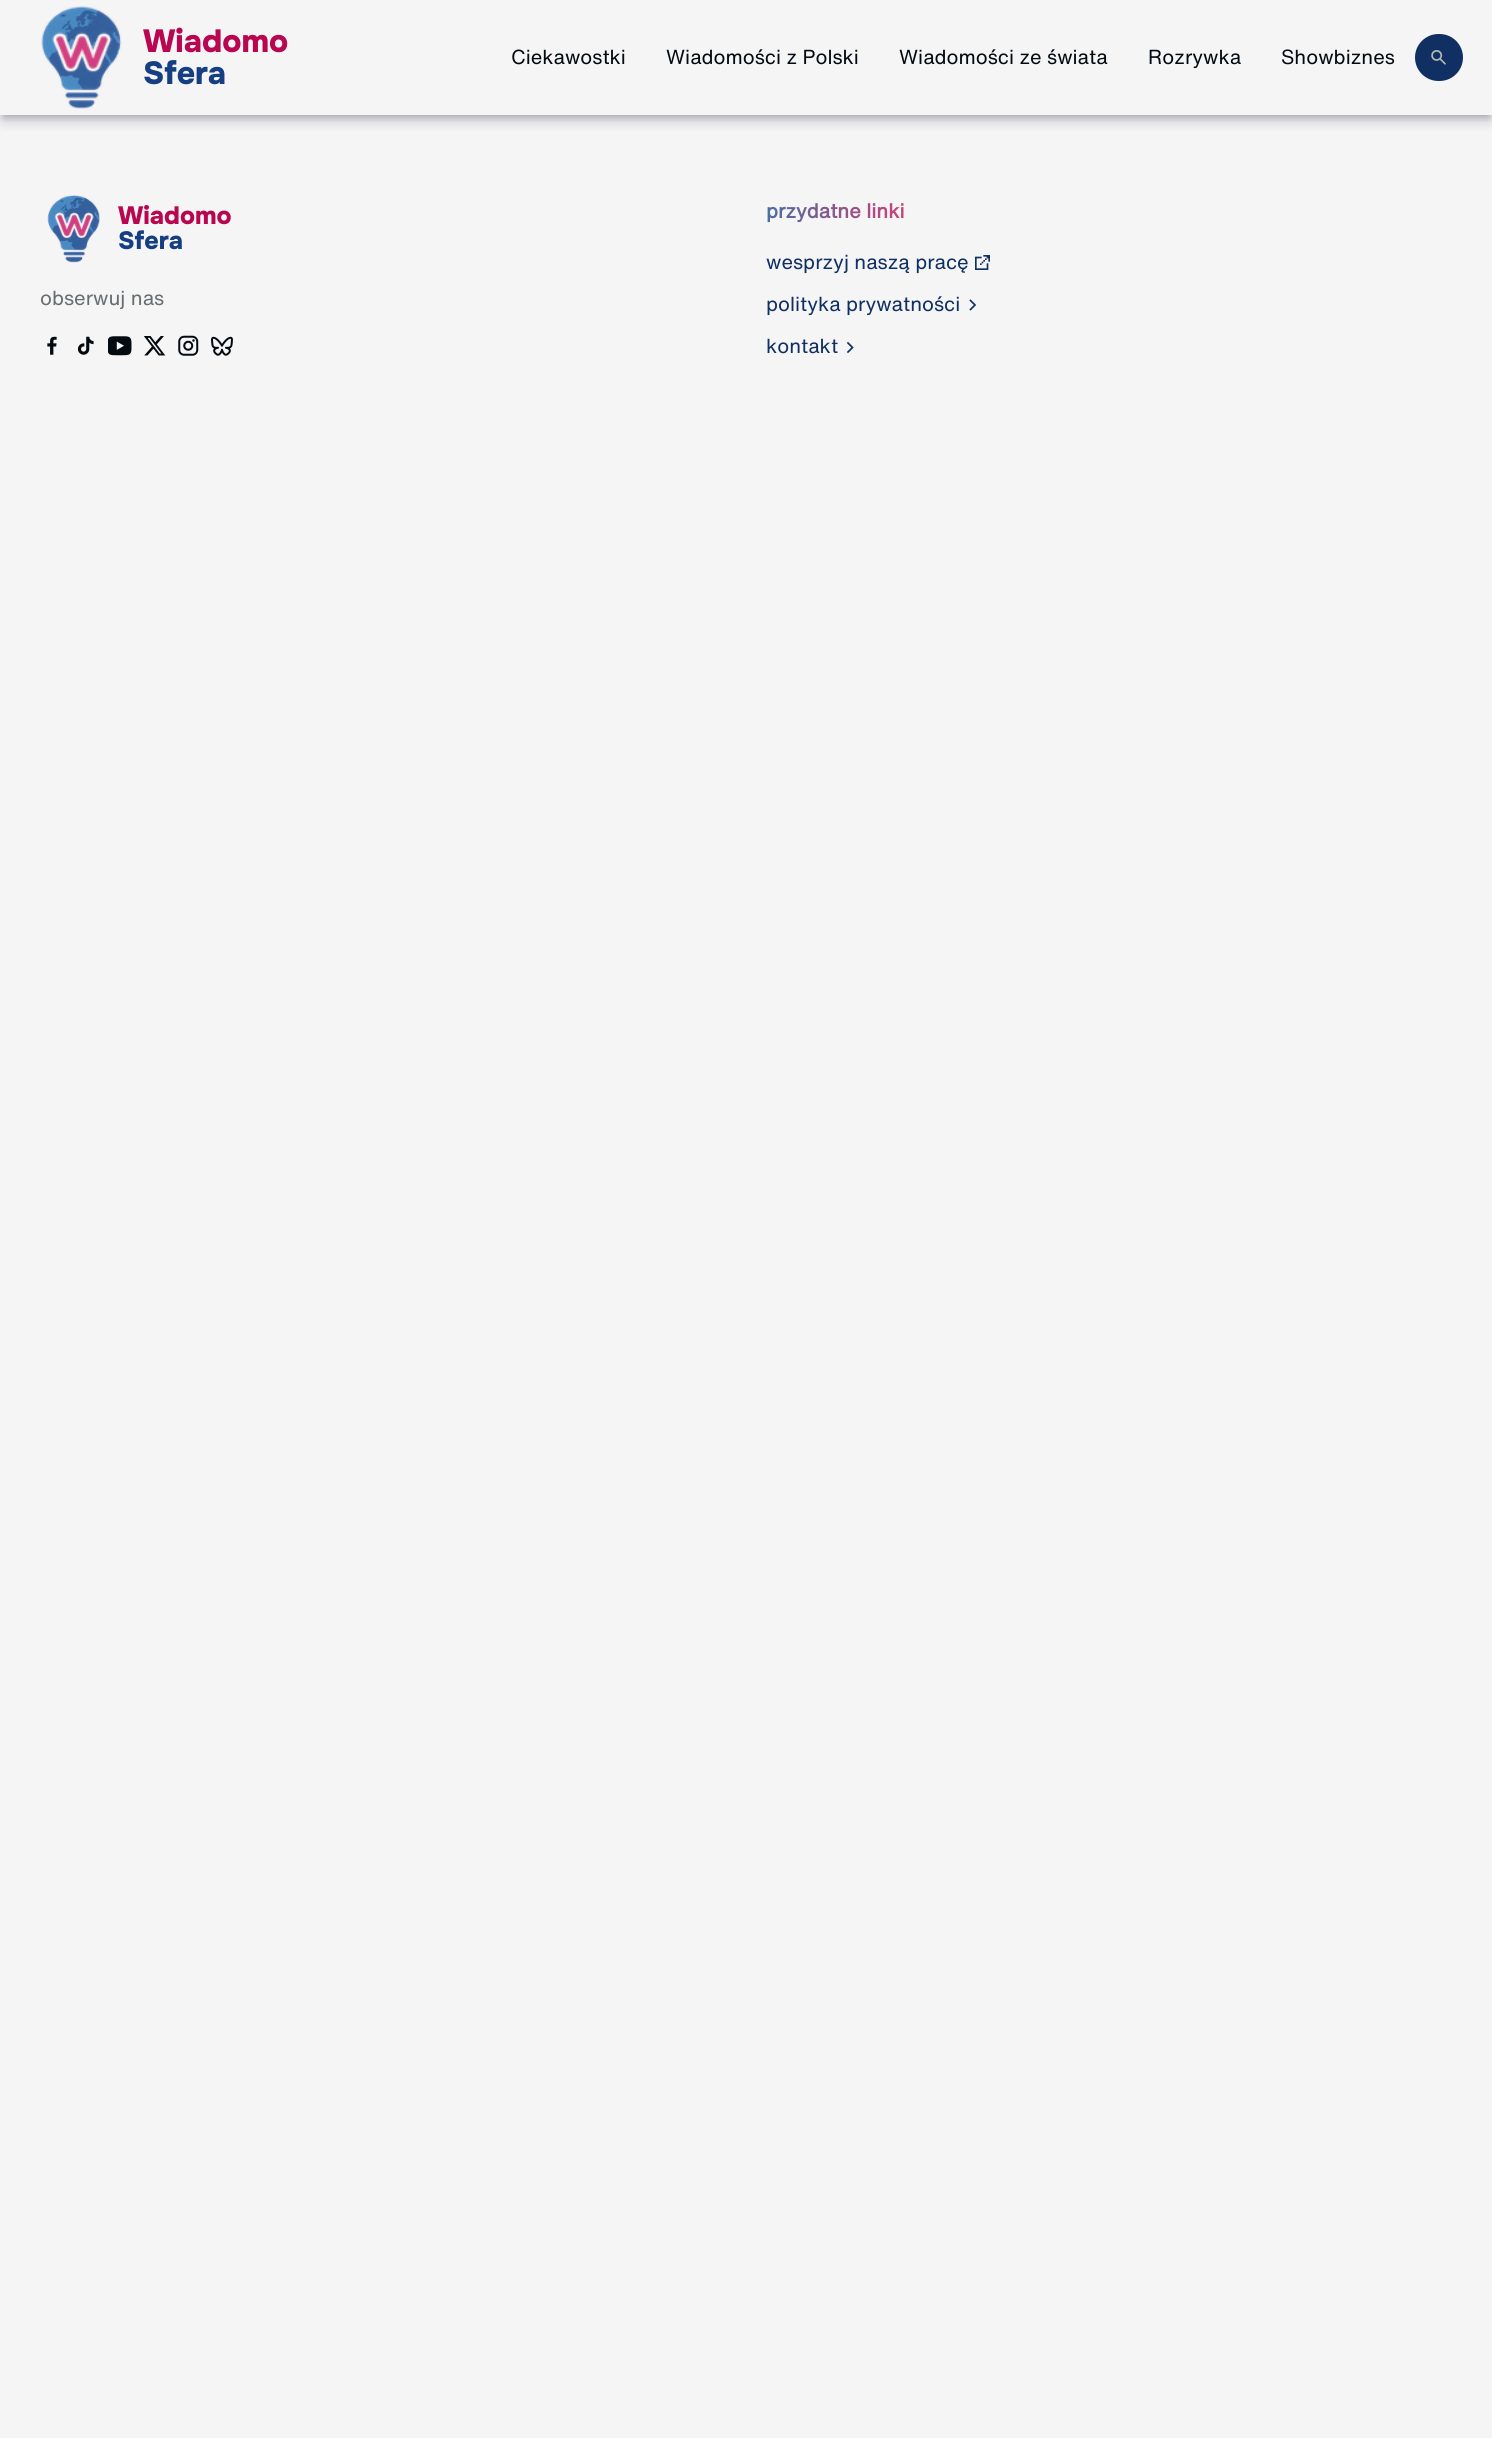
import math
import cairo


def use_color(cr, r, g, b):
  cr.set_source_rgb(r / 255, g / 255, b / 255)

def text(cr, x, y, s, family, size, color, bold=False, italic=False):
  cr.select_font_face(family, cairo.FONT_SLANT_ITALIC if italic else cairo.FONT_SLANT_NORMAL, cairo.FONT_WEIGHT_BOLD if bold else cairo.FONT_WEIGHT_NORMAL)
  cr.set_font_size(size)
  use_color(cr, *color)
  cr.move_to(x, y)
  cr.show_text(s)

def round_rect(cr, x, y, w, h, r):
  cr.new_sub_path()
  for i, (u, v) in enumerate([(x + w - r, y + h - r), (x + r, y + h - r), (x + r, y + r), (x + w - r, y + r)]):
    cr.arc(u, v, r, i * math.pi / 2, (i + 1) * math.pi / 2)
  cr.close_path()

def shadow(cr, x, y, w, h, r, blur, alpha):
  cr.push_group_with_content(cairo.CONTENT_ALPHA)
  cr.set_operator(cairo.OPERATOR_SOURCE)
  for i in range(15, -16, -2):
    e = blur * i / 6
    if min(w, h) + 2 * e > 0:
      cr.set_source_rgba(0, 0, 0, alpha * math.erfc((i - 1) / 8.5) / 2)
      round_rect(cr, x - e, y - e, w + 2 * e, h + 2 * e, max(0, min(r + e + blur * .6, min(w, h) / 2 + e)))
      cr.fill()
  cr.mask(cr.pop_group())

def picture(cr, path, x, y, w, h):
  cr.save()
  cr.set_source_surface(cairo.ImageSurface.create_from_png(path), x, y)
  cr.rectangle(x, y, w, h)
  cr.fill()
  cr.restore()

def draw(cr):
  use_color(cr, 245, 245, 245)
  cr.paint()
  cr.save()
  cr.rectangle(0, 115, 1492, 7)
  cr.clip()
  use_color(cr, 0, 0, 0)
  shadow(cr, 4, 8, 1485, 107, 0, 4.5, 0.3)
  cr.restore()
  cr.save()
  cr.rectangle(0, 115, 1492, 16)
  cr.clip()
  use_color(cr, 50, 50, 93)
  shadow(cr, 3, 10, 1487, 110, 0, 7.5, 0.25)
  cr.restore()
  picture(cr, "img_01.png", 41, 6, 81, 103)
  use_color(cr, 16, 47, 98)
  round_rect(cr, 1415, 34, 48, 47, 23.5)
  cr.fill()
  picture(cr, "img_02.png", 1431, 50, 15, 15)
  picture(cr, "img_03.png", 47, 195, 53, 68)
  picture(cr, "img_04.png", 47, 336, 10, 19)
  picture(cr, "img_05.png", 77, 336, 17, 19)
  picture(cr, "img_06.png", 108, 336, 24, 20)
  picture(cr, "img_07.png", 143, 336, 23, 20)
  picture(cr, "img_08.png", 178, 335, 21, 21)
  picture(cr, "img_09.png", 211, 336, 22, 20)
  picture(cr, "img_10.png", 975, 255, 15, 15)
  cr.new_path()
  cr.move_to(970.5, 309.5)
  cr.line_to(975, 305)
  cr.line_to(970.5, 300.5)
  cr.set_line_width(1.7)
  cr.set_line_cap(cairo.LINE_CAP_SQUARE)
  cr.stroke()
  cr.new_path()
  cr.move_to(848, 352)
  cr.line_to(852.5, 347.5)
  cr.line_to(848, 343)
  cr.stroke()
  text(cr, 143, 52, "Wiadomo", "Onest ExtraBold", 32, (184, 6, 80))
  text(cr, 143, 84, "Sfera", "Onest ExtraBold", 32, (21, 63, 130))
  text(cr, 511, 64, "Ciekawostki", "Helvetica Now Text", 20, (3, 11, 17))
  text(cr, 666, 64, "Wiadomości z Polski", "Helvetica Now Text", 20, (3, 11, 17))
  text(cr, 899, 64, "Wiadomości ze świata", "Helvetica Now Text", 20, (3, 11, 17))
  text(cr, 1148, 64, "Rozrywka", "Helvetica Now Text", 20, (3, 11, 17))
  text(cr, 1281, 64, "Showbiznes", "Helvetica Now Text", 20, (3, 11, 17))
  text(cr, 118, 224, "Wiadomo", "Onest ExtraBold", 25, (184, 6, 80))
  text(cr, 118, 249, "Sfera", "Onest ExtraBold", 25, (21, 63, 130))
  text(cr, 40, 305, "obserwuj nas", "Helvetica Now Text", 20, (104, 109, 112))
  cr.select_font_face("Helvetica Now Text", cairo.FONT_SLANT_NORMAL, cairo.FONT_WEIGHT_BOLD)
  gradient = cairo.LinearGradient(766, 211, 905, 211)
  gradient.add_color_stop_rgba(0, 0.302, 0.427, 0.624, 1)
  gradient.add_color_stop_rgba(1, 0.78, 0.259, 0.475, 1)
  cr.set_source(gradient)
  cr.move_to(766, 218)
  cr.show_text("przydatne linki")
  text(cr, 766, 269, "wesprzyj naszą pracę", "Helvetica Now Text", 20, (16, 47, 98))
  text(cr, 766, 311, "polityka prywatności", "Helvetica Now Text", 20, (16, 47, 98))
  text(cr, 766, 353, "kontakt", "Helvetica Now Text", 20, (16, 47, 98))


surface = cairo.ImageSurface(cairo.FORMAT_RGB24, 1492, 2438)
cr = cairo.Context(surface)
options = cairo.FontOptions()
options.set_hint_metrics(cairo.HINT_METRICS_OFF)
options.set_hint_style(cairo.HINT_STYLE_NONE)
cr.set_font_options(options)
cr.set_miter_limit(4)
draw(cr)
surface.write_to_png("out.png")
